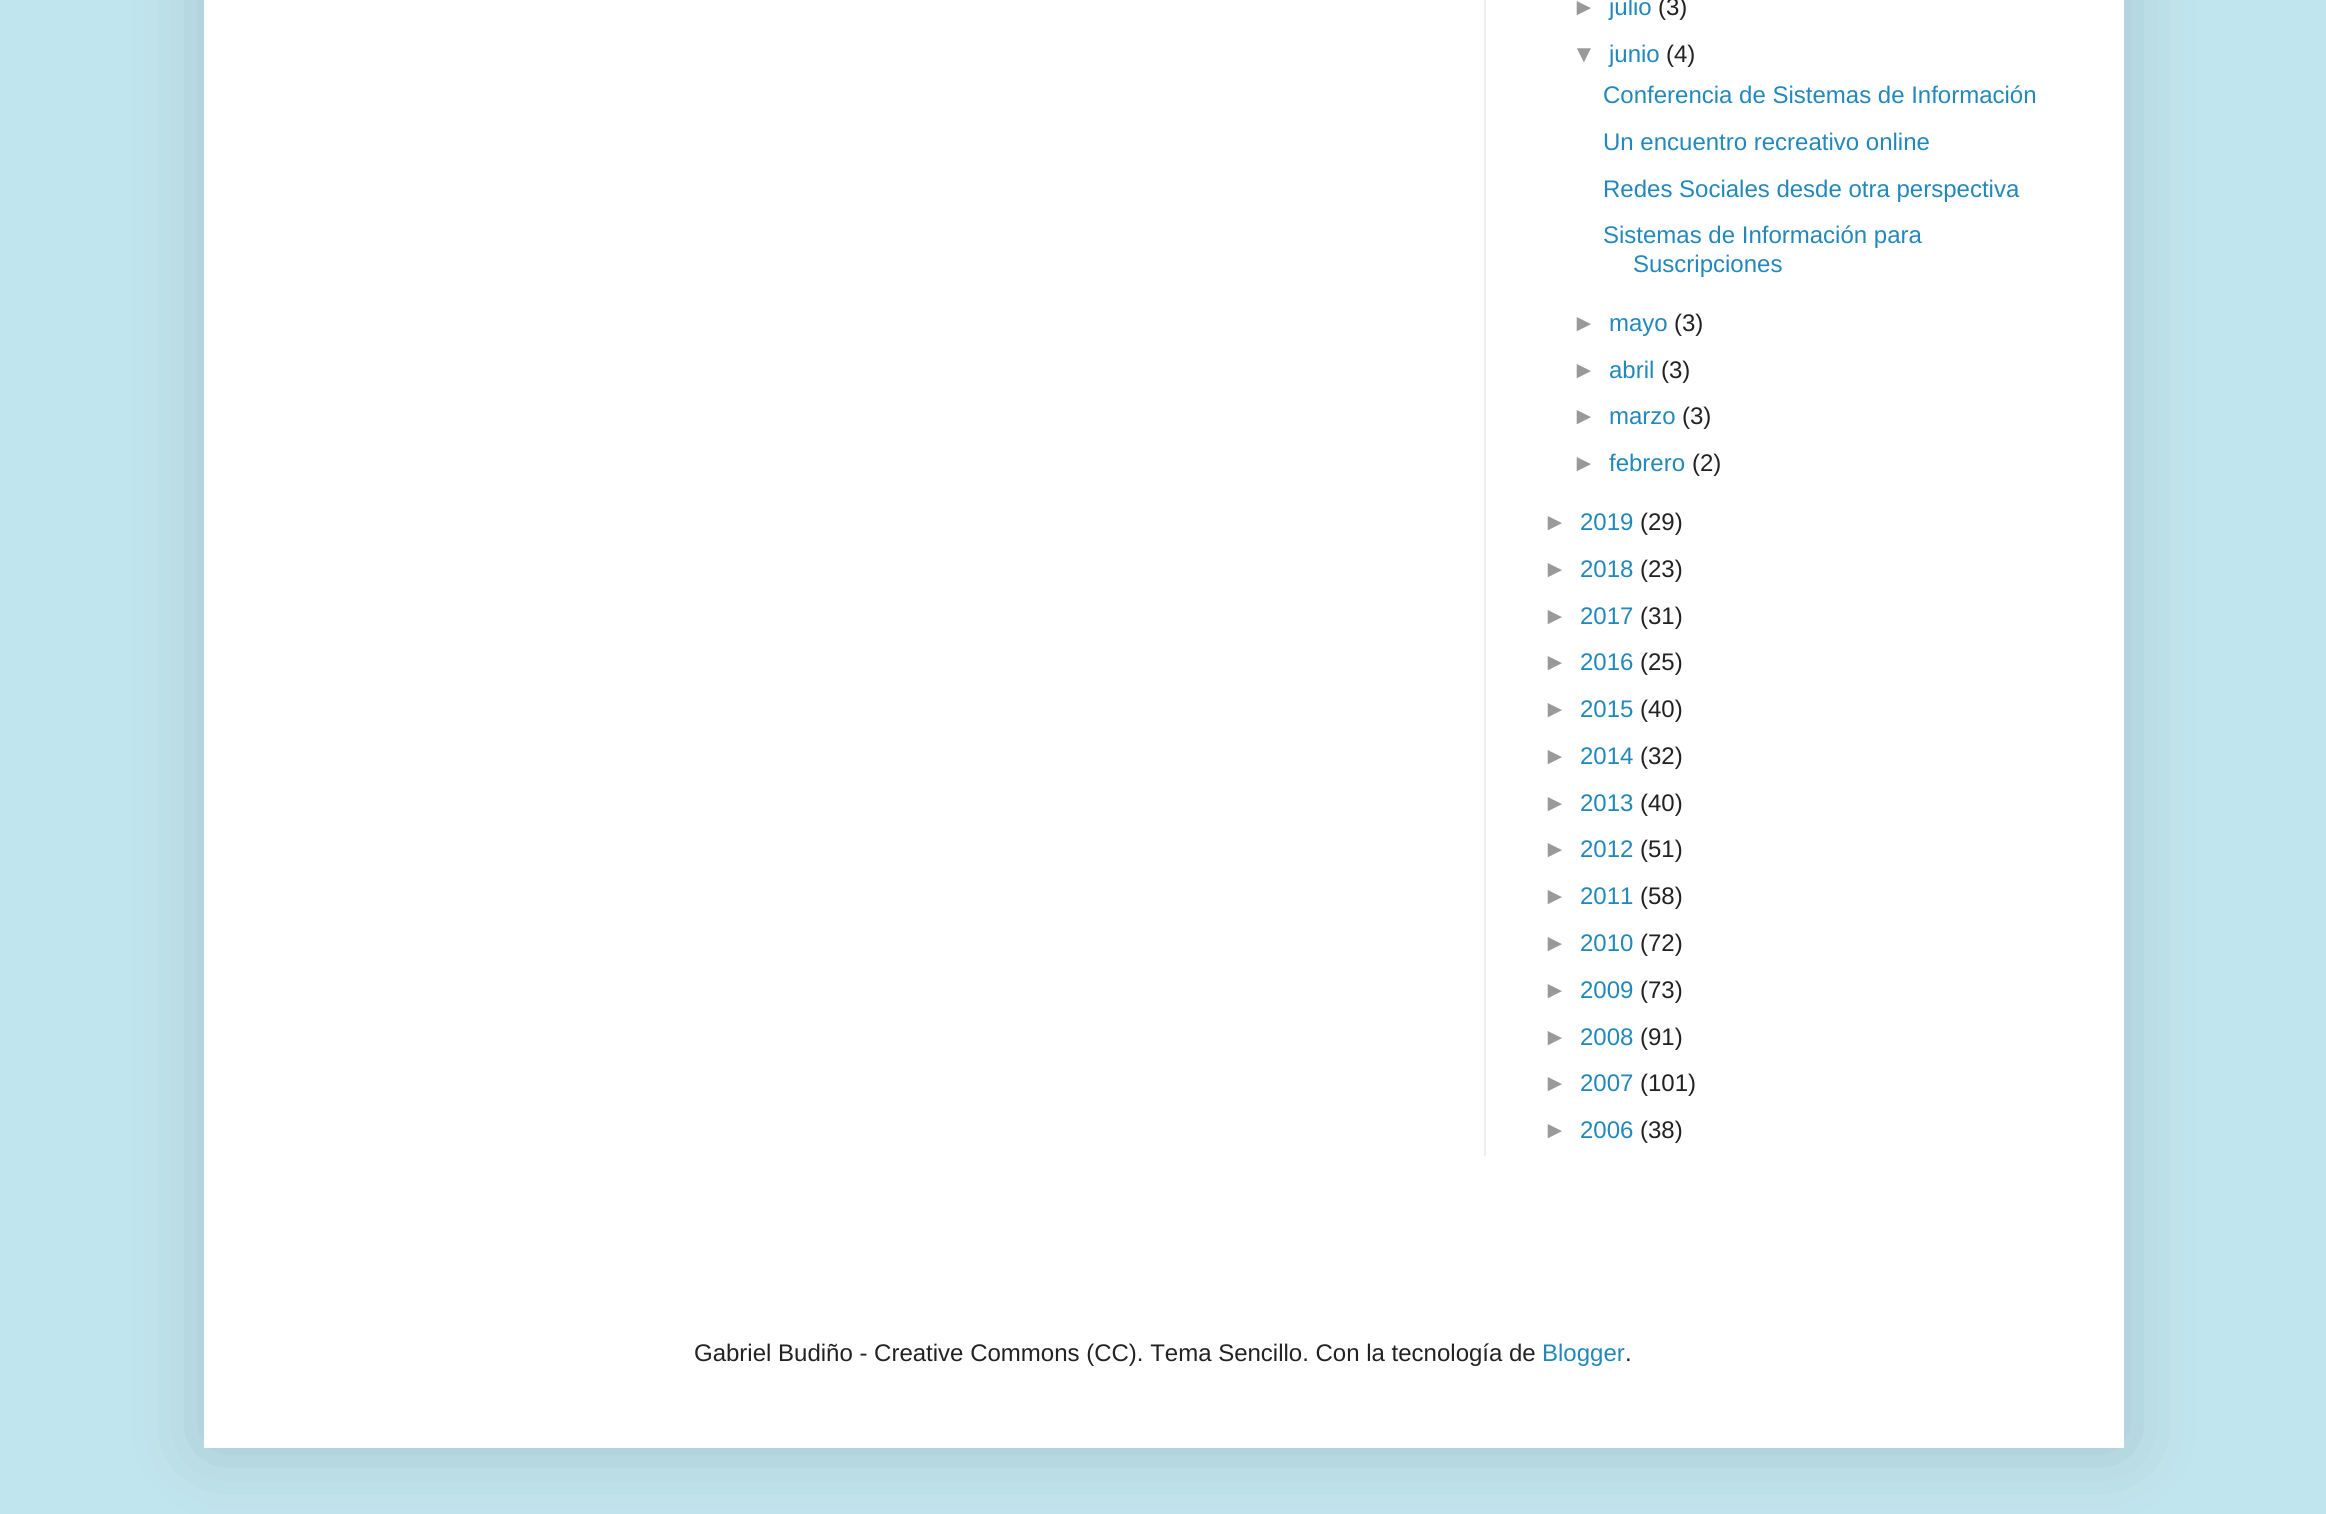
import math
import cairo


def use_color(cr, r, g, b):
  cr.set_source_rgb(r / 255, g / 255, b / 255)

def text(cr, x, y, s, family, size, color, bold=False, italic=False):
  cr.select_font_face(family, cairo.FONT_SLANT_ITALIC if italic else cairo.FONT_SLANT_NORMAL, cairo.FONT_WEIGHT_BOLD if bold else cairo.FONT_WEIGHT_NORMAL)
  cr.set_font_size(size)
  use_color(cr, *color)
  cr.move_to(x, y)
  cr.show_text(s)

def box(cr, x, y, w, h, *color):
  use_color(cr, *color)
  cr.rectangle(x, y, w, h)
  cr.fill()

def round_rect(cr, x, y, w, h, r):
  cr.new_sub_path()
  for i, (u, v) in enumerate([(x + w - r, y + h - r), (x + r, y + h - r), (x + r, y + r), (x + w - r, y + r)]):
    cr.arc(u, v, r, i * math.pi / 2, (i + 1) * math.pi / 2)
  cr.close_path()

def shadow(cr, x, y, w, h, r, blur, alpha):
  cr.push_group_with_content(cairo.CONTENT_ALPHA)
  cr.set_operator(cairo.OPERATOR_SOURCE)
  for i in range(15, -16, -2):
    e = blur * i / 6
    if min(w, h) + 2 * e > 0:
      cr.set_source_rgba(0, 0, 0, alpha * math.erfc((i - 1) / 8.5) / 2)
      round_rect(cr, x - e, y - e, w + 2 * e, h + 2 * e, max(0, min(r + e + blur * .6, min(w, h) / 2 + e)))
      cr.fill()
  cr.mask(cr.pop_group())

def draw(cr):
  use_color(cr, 193, 229, 238)
  cr.paint()
  use_color(cr, 0, 0, 0)
  shadow(cr, 204, -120, 1920, 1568, 0, 40, 0.15)
  box(cr, 204, 0, 1920, 1448, 255, 255, 255)
  box(cr, 1484, 0, 2, 1156, 238, 238, 238)
  text(cr, 1572, 15, "►", "Liberation Sans", 24, (153, 153, 153))
  text(cr, 1609, 15, "julio", "Liberation Sans", 24, (34, 136, 187))
  text(cr, 1658, 15, "(3)", "Liberation Sans", 24, (34, 34, 34))
  text(cr, 1572, 62, "▼", "Liberation Sans", 24, (153, 153, 153))
  text(cr, 1609, 62, "junio", "Liberation Sans", 24, (34, 136, 187))
  text(cr, 1666, 62, "(4)", "Liberation Sans", 24, (34, 34, 34))
  text(cr, 1603, 103, "Conferencia de Sistemas de Información", "Liberation Sans", 24, (34, 136, 187))
  text(cr, 1603, 150, "Un encuentro recreativo online", "Liberation Sans", 24, (34, 136, 187))
  text(cr, 1603, 197, "Redes Sociales desde otra perspectiva", "Liberation Sans", 24, (34, 136, 187))
  text(cr, 1603, 243, "Sistemas de Información para", "Liberation Sans", 24, (34, 136, 187))
  text(cr, 1633, 272, "Suscripciones", "Liberation Sans", 24, (34, 136, 187))
  text(cr, 1572, 331, "►", "Liberation Sans", 24, (153, 153, 153))
  text(cr, 1609, 331, "mayo", "Liberation Sans", 24, (34, 136, 187))
  text(cr, 1674, 331, "(3)", "Liberation Sans", 24, (34, 34, 34))
  text(cr, 1572, 378, "►", "Liberation Sans", 24, (153, 153, 153))
  text(cr, 1609, 378, "abril", "Liberation Sans", 24, (34, 136, 187))
  text(cr, 1661, 378, "(3)", "Liberation Sans", 24, (34, 34, 34))
  text(cr, 1572, 424, "►", "Liberation Sans", 24, (153, 153, 153))
  text(cr, 1609, 424, "marzo", "Liberation Sans", 24, (34, 136, 187))
  text(cr, 1682, 424, "(3)", "Liberation Sans", 24, (34, 34, 34))
  text(cr, 1572, 471, "►", "Liberation Sans", 24, (153, 153, 153))
  text(cr, 1609, 471, "febrero", "Liberation Sans", 24, (34, 136, 187))
  text(cr, 1692, 471, "(2)", "Liberation Sans", 24, (34, 34, 34))
  text(cr, 1543, 530, "►", "Liberation Sans", 24, (153, 153, 153))
  text(cr, 1580, 530, "2019", "Liberation Sans", 24, (34, 136, 187))
  text(cr, 1640, 530, "(29)", "Liberation Sans", 24, (34, 34, 34))
  text(cr, 1543, 577, "►", "Liberation Sans", 24, (153, 153, 153))
  text(cr, 1580, 577, "2018", "Liberation Sans", 24, (34, 136, 187))
  text(cr, 1640, 577, "(23)", "Liberation Sans", 24, (34, 34, 34))
  text(cr, 1543, 624, "►", "Liberation Sans", 24, (153, 153, 153))
  text(cr, 1580, 624, "2017", "Liberation Sans", 24, (34, 136, 187))
  text(cr, 1640, 624, "(31)", "Liberation Sans", 24, (34, 34, 34))
  text(cr, 1543, 670, "►", "Liberation Sans", 24, (153, 153, 153))
  text(cr, 1580, 670, "2016", "Liberation Sans", 24, (34, 136, 187))
  text(cr, 1640, 670, "(25)", "Liberation Sans", 24, (34, 34, 34))
  text(cr, 1543, 717, "►", "Liberation Sans", 24, (153, 153, 153))
  text(cr, 1580, 717, "2015", "Liberation Sans", 24, (34, 136, 187))
  text(cr, 1640, 717, "(40)", "Liberation Sans", 24, (34, 34, 34))
  text(cr, 1543, 764, "►", "Liberation Sans", 24, (153, 153, 153))
  text(cr, 1580, 764, "2014", "Liberation Sans", 24, (34, 136, 187))
  text(cr, 1640, 764, "(32)", "Liberation Sans", 24, (34, 34, 34))
  text(cr, 1543, 811, "►", "Liberation Sans", 24, (153, 153, 153))
  text(cr, 1580, 811, "2013", "Liberation Sans", 24, (34, 136, 187))
  text(cr, 1640, 811, "(40)", "Liberation Sans", 24, (34, 34, 34))
  text(cr, 1543, 857, "►", "Liberation Sans", 24, (153, 153, 153))
  text(cr, 1580, 857, "2012", "Liberation Sans", 24, (34, 136, 187))
  text(cr, 1640, 857, "(51)", "Liberation Sans", 24, (34, 34, 34))
  text(cr, 1543, 904, "►", "Liberation Sans", 24, (153, 153, 153))
  text(cr, 1580, 904, "2011", "Liberation Sans", 24, (34, 136, 187))
  text(cr, 1640, 904, "(58)", "Liberation Sans", 24, (34, 34, 34))
  text(cr, 1543, 951, "►", "Liberation Sans", 24, (153, 153, 153))
  text(cr, 1580, 951, "2010", "Liberation Sans", 24, (34, 136, 187))
  text(cr, 1640, 951, "(72)", "Liberation Sans", 24, (34, 34, 34))
  text(cr, 1543, 998, "►", "Liberation Sans", 24, (153, 153, 153))
  text(cr, 1580, 998, "2009", "Liberation Sans", 24, (34, 136, 187))
  text(cr, 1640, 998, "(73)", "Liberation Sans", 24, (34, 34, 34))
  text(cr, 1543, 1045, "►", "Liberation Sans", 24, (153, 153, 153))
  text(cr, 1580, 1045, "2008", "Liberation Sans", 24, (34, 136, 187))
  text(cr, 1640, 1045, "(91)", "Liberation Sans", 24, (34, 34, 34))
  text(cr, 1543, 1091, "►", "Liberation Sans", 24, (153, 153, 153))
  text(cr, 1580, 1091, "2007", "Liberation Sans", 24, (34, 136, 187))
  text(cr, 1640, 1091, "(101)", "Liberation Sans", 24, (34, 34, 34))
  text(cr, 1543, 1138, "►", "Liberation Sans", 24, (153, 153, 153))
  text(cr, 1580, 1138, "2006", "Liberation Sans", 24, (34, 136, 187))
  text(cr, 1640, 1138, "(38)", "Liberation Sans", 24, (34, 34, 34))
  text(cr, 694, 1361, "Gabriel Budiño - Creative Commons (CC). Tema Sencillo. Con la tecnología de", "Liberation Sans", 24, (34, 34, 34))
  text(cr, 1542, 1361, "Blogger", "Liberation Sans", 24, (34, 136, 187))
  text(cr, 1625, 1361, ".", "Liberation Sans", 24, (34, 34, 34))


surface = cairo.ImageSurface(cairo.FORMAT_RGB24, 2326, 1514)
cr = cairo.Context(surface)
options = cairo.FontOptions()
options.set_hint_metrics(cairo.HINT_METRICS_OFF)
options.set_hint_style(cairo.HINT_STYLE_NONE)
cr.set_font_options(options)
cr.set_miter_limit(4)
draw(cr)
surface.write_to_png("out.png")
